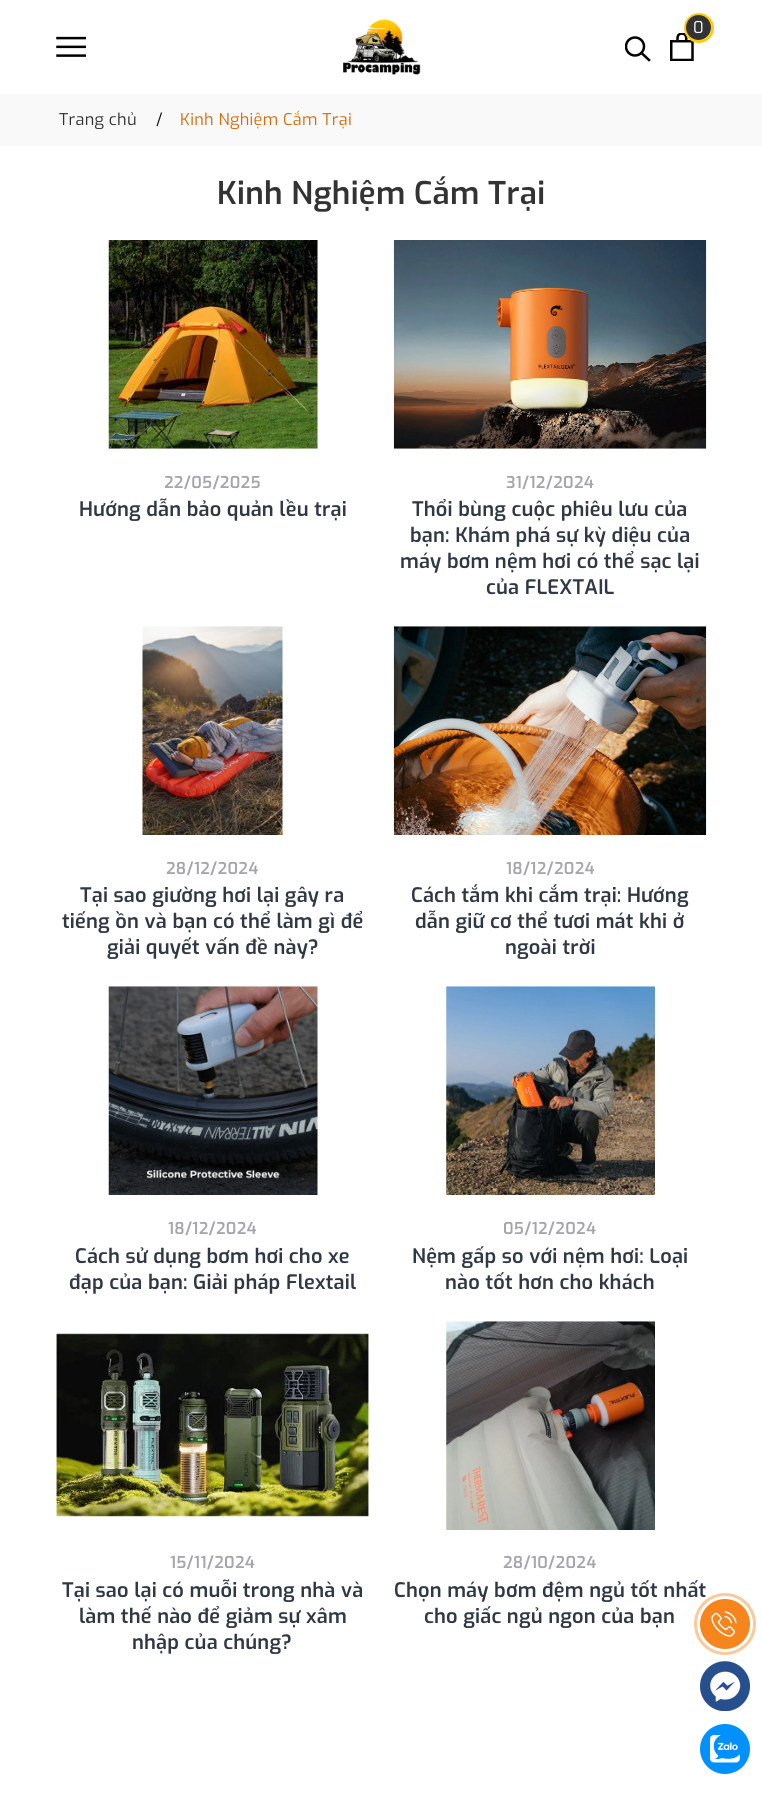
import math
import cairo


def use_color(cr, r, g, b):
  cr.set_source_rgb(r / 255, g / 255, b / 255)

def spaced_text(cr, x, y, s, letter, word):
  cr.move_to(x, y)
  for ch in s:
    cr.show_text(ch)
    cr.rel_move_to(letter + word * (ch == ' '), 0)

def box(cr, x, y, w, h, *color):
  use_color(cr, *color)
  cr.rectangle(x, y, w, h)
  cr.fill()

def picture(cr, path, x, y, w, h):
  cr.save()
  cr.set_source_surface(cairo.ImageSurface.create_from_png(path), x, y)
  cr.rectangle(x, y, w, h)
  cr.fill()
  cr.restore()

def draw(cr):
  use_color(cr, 255, 255, 255)
  cr.paint()
  picture(cr, "img_01.png", 343, 19, 78, 56)
  picture(cr, "img_02.png", 670, 33, 24, 28)
  cr.arc(699, 28, 13.5, 0, 2 * math.pi)
  use_color(cr, 255, 203, 8)
  cr.set_line_width(3)
  cr.stroke()
  use_color(cr, 51, 51, 51)
  cr.arc(698.5, 27.5, 12.5, 0, 2 * math.pi)
  cr.fill()
  cr.new_path()
  cr.move_to(649, 60)
  cr.line_to(641.5, 53)
  use_color(cr, 0, 0, 0)
  cr.set_line_width(2.5)
  cr.set_line_cap(cairo.LINE_CAP_SQUARE)
  cr.stroke()
  cr.save()
  cr.rectangle(625, 36, 26, 27)
  cr.clip()
  cr.arc(635, 46.5, 9, 0, 2 * math.pi)
  cr.set_line_cap(cairo.LINE_CAP_BUTT)
  cr.stroke()
  cr.restore()
  picture(cr, "img_03.png", 56, 36, 30, 21)
  box(cr, 0, 94, 762, 52, 249, 249, 249)
  picture(cr, "img_04.png", 108, 240, 210, 209)
  picture(cr, "img_05.png", 393, 240, 314, 209)
  picture(cr, "img_06.png", 142, 626, 141, 209)
  picture(cr, "img_07.png", 393, 626, 314, 209)
  picture(cr, "img_08.png", 108, 986, 210, 209)
  picture(cr, "img_09.png", 446, 986, 209, 209)
  picture(cr, "img_10.png", 56, 1333, 313, 184)
  picture(cr, "img_11.png", 446, 1321, 209, 209)
  picture(cr, "img_13.png", 700, 1661, 50, 50)
  picture(cr, "img_14.png", 700, 1724, 50, 50)
  cr.select_font_face("Exo")
  cr.set_font_size(16.25)
  use_color(cr, 255, 255, 255)
  spaced_text(cr, 693, 33, "0", 0.3, 0)
  use_color(cr, 51, 51, 51)
  spaced_text(cr, 59, 125, "Trang chủ", 0.3, 0)
  use_color(cr, 17, 17, 17)
  spaced_text(cr, 156, 125, "/", 0.3, 0)
  use_color(cr, 215, 108, 9)
  spaced_text(cr, 180, 125, "Kinh Nghiệm Cắm Trại", 0.3, 0)
  cr.select_font_face("Exo SemiBold")
  cr.set_font_size(31.25)
  use_color(cr, 51, 51, 51)
  spaced_text(cr, 217, 204, "Kinh Nghiệm Cắm Trại", 0.3, 0)
  cr.set_font_size(16.25)
  use_color(cr, 165, 166, 172)
  spaced_text(cr, 164, 488, "22/05/2025", 0.3, 0)
  cr.set_font_size(20)
  use_color(cr, 48, 56, 70)
  spaced_text(cr, 79, 516, "Hướng dẫn bảo quản lều trại", 0.2, 0)
  cr.set_font_size(16.25)
  use_color(cr, 165, 166, 172)
  spaced_text(cr, 506, 488, "31/12/2024", 0.3, 0)
  cr.set_font_size(20)
  use_color(cr, 48, 56, 70)
  spaced_text(cr, 412, 516, "Thổi bùng cuộc phiêu lưu của", 0.2, 0)
  spaced_text(cr, 410, 542, "bạn: Khám phá sự kỳ diệu của", 0.2, 0)
  spaced_text(cr, 400, 568, "máy bơm nệm hơi có thể sạc lại", 0.2, 0)
  spaced_text(cr, 486, 594, "của FLEXTAIL", 0.2, 0)
  cr.set_font_size(16.25)
  use_color(cr, 165, 166, 172)
  spaced_text(cr, 166, 874, "28/12/2024", 0.3, 0)
  cr.set_font_size(20)
  use_color(cr, 48, 56, 70)
  spaced_text(cr, 80, 902, "Tại sao giường hơi lại gây ra", 0.2, 0)
  spaced_text(cr, 62, 928, "tiếng ồn và bạn có thể làm gì để", 0.2, 0)
  spaced_text(cr, 107, 954, "giải quyết vấn đề này?", 0.2, 0)
  cr.set_font_size(16.25)
  use_color(cr, 165, 166, 172)
  spaced_text(cr, 506, 874, "18/12/2024", 0.3, 0)
  cr.set_font_size(20)
  use_color(cr, 48, 56, 70)
  spaced_text(cr, 411, 902, "Cách tắm khi cắm trại: Hướng", 0.2, 0)
  spaced_text(cr, 415, 928, "dẫn giữ cơ thể tươi mát khi ở", 0.2, 0)
  spaced_text(cr, 505, 954, "ngoài trời", 0.2, 0)
  cr.set_font_size(16.25)
  use_color(cr, 165, 166, 172)
  spaced_text(cr, 168, 1234, "18/12/2024", 0.3, 0)
  cr.set_font_size(20)
  use_color(cr, 48, 56, 70)
  spaced_text(cr, 75, 1263, "Cách sử dụng bơm hơi cho xe", 0.2, 0)
  spaced_text(cr, 69, 1289, "đạp của bạn: Giải pháp Flextail", 0.2, 0)
  cr.set_font_size(16.25)
  use_color(cr, 165, 166, 172)
  spaced_text(cr, 503, 1234, "05/12/2024", 0.3, 0)
  cr.set_font_size(20)
  use_color(cr, 48, 56, 70)
  spaced_text(cr, 412, 1263, "Nệm gấp so với nệm hơi: Loại", 0.2, 0)
  spaced_text(cr, 445, 1289, "nào tốt hơn cho khách", 0.2, 0)
  cr.set_font_size(16.25)
  use_color(cr, 165, 166, 172)
  spaced_text(cr, 170, 1568, "15/11/2024", 0.3, 0)
  cr.set_font_size(20)
  use_color(cr, 48, 56, 70)
  spaced_text(cr, 62, 1597, "Tại sao lại có muỗi trong nhà và", 0.2, 0)
  spaced_text(cr, 79, 1623, "làm thế nào để giảm sự xâm", 0.2, 0)
  spaced_text(cr, 132, 1649, "nhập của chúng?", 0.2, 0)
  cr.set_font_size(16.25)
  use_color(cr, 165, 166, 172)
  spaced_text(cr, 503, 1568, "28/10/2024", 0.3, 0)
  cr.set_font_size(20)
  use_color(cr, 48, 56, 70)
  spaced_text(cr, 394, 1597, "Chọn máy bơm đệm ngủ tốt nhất", 0.2, 0)
  spaced_text(cr, 424, 1623, "cho giấc ngủ ngon của bạn", 0.2, 0)
  cr.new_path()
  cr.arc(725, 1624, 29.5, 0, 2 * math.pi)
  use_color(cr, 251, 201, 155)
  cr.set_line_width(3)
  cr.set_line_cap(cairo.LINE_CAP_BUTT)
  cr.stroke()
  use_color(cr, 246, 133, 29)
  cr.arc(725, 1624, 25, 0, 2 * math.pi)
  cr.fill()
  picture(cr, "img_12.png", 711, 1611, 26, 26)


surface = cairo.ImageSurface(cairo.FORMAT_RGB24, 762, 1798)
cr = cairo.Context(surface)
options = cairo.FontOptions()
options.set_hint_metrics(cairo.HINT_METRICS_OFF)
options.set_hint_style(cairo.HINT_STYLE_NONE)
cr.set_font_options(options)
cr.set_miter_limit(4)
draw(cr)
surface.write_to_png("out.png")
